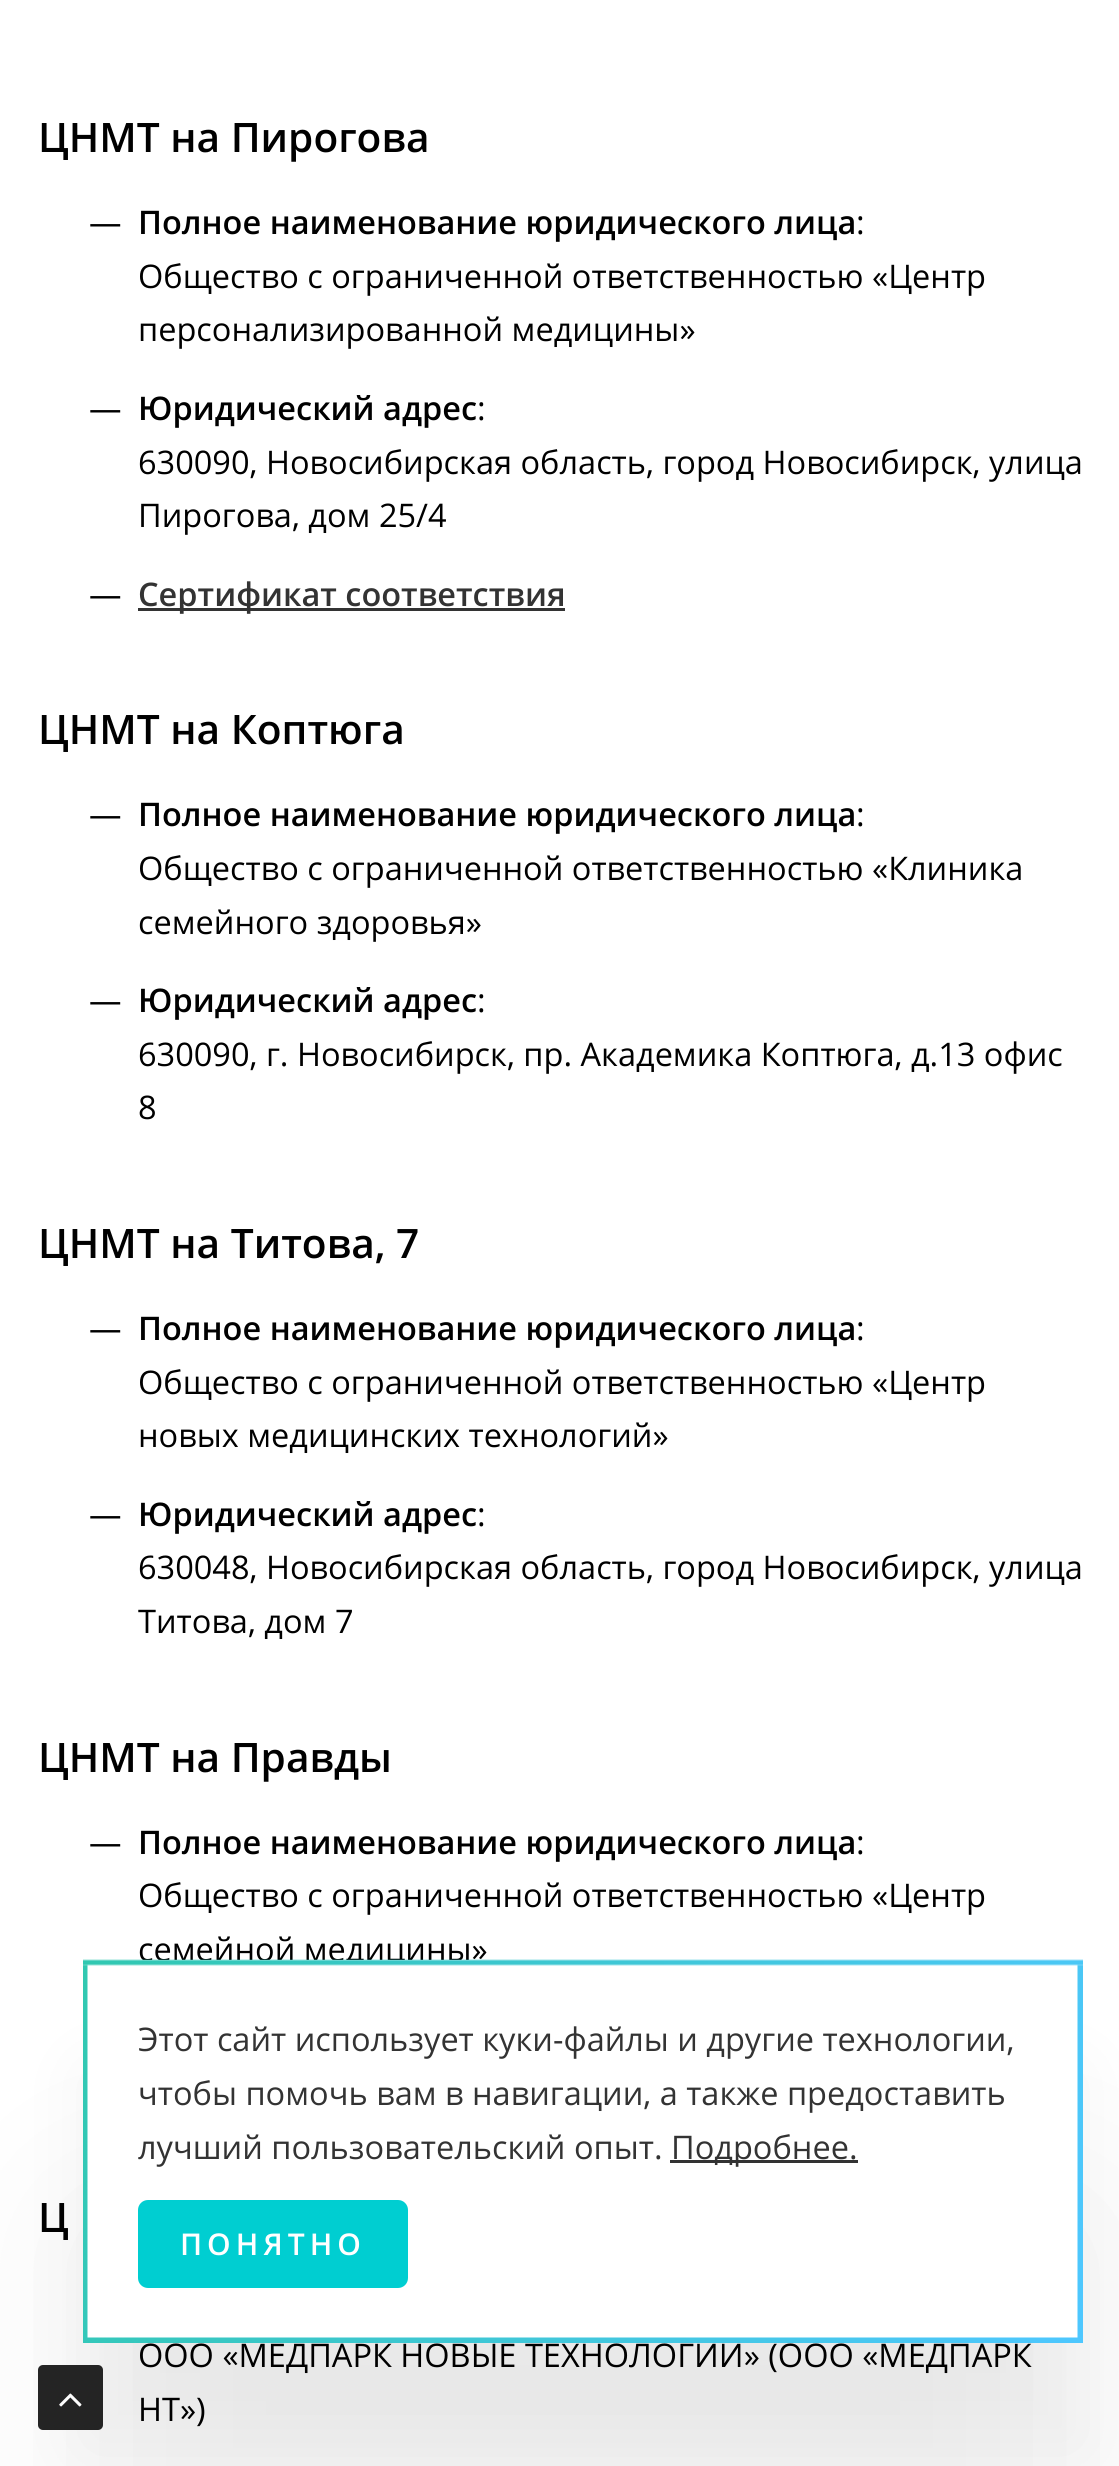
import math
import cairo


def use_color(cr, r, g, b):
  cr.set_source_rgb(r / 255, g / 255, b / 255)

def text(cr, x, y, s, family, size, color, bold=False, italic=False):
  cr.select_font_face(family, cairo.FONT_SLANT_ITALIC if italic else cairo.FONT_SLANT_NORMAL, cairo.FONT_WEIGHT_BOLD if bold else cairo.FONT_WEIGHT_NORMAL)
  cr.set_font_size(size)
  use_color(cr, *color)
  cr.move_to(x, y)
  cr.show_text(s)

def spaced_text(cr, x, y, s, letter, word):
  cr.move_to(x, y)
  for ch in s:
    cr.show_text(ch)
    cr.rel_move_to(letter + word * (ch == ' '), 0)

def box(cr, x, y, w, h, *color):
  use_color(cr, *color)
  cr.rectangle(x, y, w, h)
  cr.fill()

def round_rect(cr, x, y, w, h, r):
  cr.new_sub_path()
  for i, (u, v) in enumerate([(x + w - r, y + h - r), (x + r, y + h - r), (x + r, y + r), (x + w - r, y + r)]):
    cr.arc(u, v, r, i * math.pi / 2, (i + 1) * math.pi / 2)
  cr.close_path()

def shadow(cr, x, y, w, h, r, blur, alpha):
  cr.push_group_with_content(cairo.CONTENT_ALPHA)
  cr.set_operator(cairo.OPERATOR_SOURCE)
  for i in range(15, -16, -2):
    e = blur * i / 6
    if min(w, h) + 2 * e > 0:
      cr.set_source_rgba(0, 0, 0, alpha * math.erfc((i - 1) / 8.5) / 2)
      round_rect(cr, x - e, y - e, w + 2 * e, h + 2 * e, max(0, min(r + e + blur * .6, min(w, h) / 2 + e)))
      cr.fill()
  cr.mask(cr.pop_group())

def picture(cr, path, x, y, w, h):
  cr.save()
  cr.set_source_surface(cairo.ImageSurface.create_from_png(path), x, y)
  cr.rectangle(x, y, w, h)
  cr.fill()
  cr.restore()

def draw(cr):
  use_color(cr, 255, 255, 255)
  cr.paint()
  box(cr, 138, 608, 427, 3, 51, 51, 51)
  use_color(cr, 0, 0, 0)
  shadow(cr, 83, 2215, 1000, 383, 0, 100, 0.06)
  shadow(cr, 83, 2068, 1000, 382, 0, 42, 0.04)
  cr.set_source_rgba(0.137, 0.137, 0.137, 0.99)
  round_rect(cr, 38, 2365, 65, 65, 5)
  cr.fill()
  picture(cr, "img_02.png", 59, 2393, 23, 14)
  text(cr, 38, 152, "ЦНМТ на Пирогова", "Open Sans SemiBold", 40.6, (0, 0, 0))
  text(cr, 89, 234, "—", "Open Sans", 32.5, (0, 0, 0))
  text(cr, 138, 234, "Полное наименование юридического лица", "Open Sans SemiBold", 32.5, (0, 0, 0))
  text(cr, 856, 234, ":", "Open Sans", 32.5, (0, 0, 0))
  text(cr, 138, 288, "Общество с ограниченной ответственностью «Центр", "Open Sans", 32.5, (0, 0, 0))
  text(cr, 138, 341, "персонализированной медицины»", "Open Sans", 32.5, (0, 0, 0))
  text(cr, 89, 420, "—", "Open Sans", 32.5, (0, 0, 0))
  text(cr, 138, 420, "Юридический адрес", "Open Sans SemiBold", 32.5, (0, 0, 0))
  text(cr, 477, 420, ":", "Open Sans", 32.5, (0, 0, 0))
  text(cr, 138, 474, "630090, Новосибирская область, город Новосибирск, улица", "Open Sans", 32.5, (0, 0, 0))
  text(cr, 138, 527, "Пирогова, дом 25/4", "Open Sans", 32.5, (0, 0, 0))
  text(cr, 89, 606, "—", "Open Sans", 32.5, (0, 0, 0))
  text(cr, 138, 606, "Сертификат соответствия", "Open Sans SemiBold", 32.5, (51, 51, 51))
  text(cr, 38, 744, "ЦНМТ на Коптюга", "Open Sans SemiBold", 40.6, (0, 0, 0))
  text(cr, 89, 826, "—", "Open Sans", 32.5, (0, 0, 0))
  text(cr, 138, 826, "Полное наименование юридического лица", "Open Sans SemiBold", 32.5, (0, 0, 0))
  text(cr, 856, 826, ":", "Open Sans", 32.5, (0, 0, 0))
  text(cr, 138, 880, "Общество с ограниченной ответственностью «Клиника", "Open Sans", 32.5, (0, 0, 0))
  text(cr, 138, 934, "семейного здоровья»", "Open Sans", 32.5, (0, 0, 0))
  text(cr, 89, 1012, "—", "Open Sans", 32.5, (0, 0, 0))
  text(cr, 138, 1012, "Юридический адрес", "Open Sans SemiBold", 32.5, (0, 0, 0))
  text(cr, 477, 1012, ":", "Open Sans", 32.5, (0, 0, 0))
  text(cr, 138, 1066, "630090, г. Новосибирск, пр. Академика Коптюга, д.13 офис", "Open Sans", 32.5, (0, 0, 0))
  text(cr, 138, 1119, "8", "Open Sans", 32.5, (0, 0, 0))
  text(cr, 38, 1258, "ЦНМТ на Титова, 7", "Open Sans SemiBold", 40.6, (0, 0, 0))
  text(cr, 89, 1340, "—", "Open Sans", 32.5, (0, 0, 0))
  text(cr, 138, 1340, "Полное наименование юридического лица", "Open Sans SemiBold", 32.5, (0, 0, 0))
  text(cr, 856, 1340, ":", "Open Sans", 32.5, (0, 0, 0))
  text(cr, 138, 1394, "Общество с ограниченной ответственностью «Центр", "Open Sans", 32.5, (0, 0, 0))
  text(cr, 138, 1447, "новых медицинских технологий»", "Open Sans", 32.5, (0, 0, 0))
  text(cr, 89, 1526, "—", "Open Sans", 32.5, (0, 0, 0))
  text(cr, 138, 1526, "Юридический адрес", "Open Sans SemiBold", 32.5, (0, 0, 0))
  text(cr, 477, 1526, ":", "Open Sans", 32.5, (0, 0, 0))
  text(cr, 138, 1579, "630048, Новосибирская область, город Новосибирск, улица", "Open Sans", 32.5, (0, 0, 0))
  text(cr, 138, 1633, "Титова, дом 7", "Open Sans", 32.5, (0, 0, 0))
  text(cr, 38, 1772, "ЦНМТ на Правды", "Open Sans SemiBold", 40.6, (0, 0, 0))
  text(cr, 89, 1854, "—", "Open Sans", 32.5, (0, 0, 0))
  text(cr, 138, 1854, "Полное наименование юридического лица", "Open Sans SemiBold", 32.5, (0, 0, 0))
  text(cr, 856, 1854, ":", "Open Sans", 32.5, (0, 0, 0))
  text(cr, 138, 1907, "Общество с ограниченной ответственностью «Центр", "Open Sans", 32.5, (0, 0, 0))
  text(cr, 138, 1961, "семейной медицины»", "Open Sans", 32.5, (0, 0, 0))
  text(cr, 38, 2232, "Ц", "Open Sans SemiBold", 40.6, (0, 0, 0))
  text(cr, 138, 2367, "ООО «МЕДПАРК НОВЫЕ ТЕХНОЛОГИИ» (ООО «МЕДПАРК", "Open Sans", 32.5, (0, 0, 0))
  text(cr, 138, 2421, "НТ»)", "Open Sans", 32.5, (0, 0, 0))
  box(cr, 83, 1960, 1000, 378, 255, 255, 255)
  picture(cr, "img_01.png", 83, 1959, 1000, 384)
  text(cr, 138, 2051, "Этот сайт использует куки-файлы и другие технологии,", "Open Sans", 32.5, (51, 51, 51))
  text(cr, 138, 2105, "чтобы помочь вам в навигации, а также предоставить", "Open Sans", 32.5, (51, 51, 51))
  text(cr, 138, 2159, "лучший пользовательский опыт.", "Open Sans", 32.5, (51, 51, 51))
  box(cr, 670, 2160, 188, 3, 51, 51, 51)
  text(cr, 671, 2159, "Подробнее.", "Open Sans", 32.5, (51, 51, 51))
  use_color(cr, 0, 206, 209)
  round_rect(cr, 139.5, 2201.5, 267, 85, 8.5)
  cr.fill_preserve()
  cr.set_line_width(3)
  cr.stroke()
  cr.select_font_face("Open Sans SemiBold")
  cr.set_font_size(30)
  use_color(cr, 255, 255, 255)
  spaced_text(cr, 180, 2255, "ПОНЯТНО", 5, 0)


surface = cairo.ImageSurface(cairo.FORMAT_RGB24, 1119, 2466)
cr = cairo.Context(surface)
options = cairo.FontOptions()
options.set_hint_metrics(cairo.HINT_METRICS_OFF)
options.set_hint_style(cairo.HINT_STYLE_NONE)
cr.set_font_options(options)
cr.set_miter_limit(4)
draw(cr)
surface.write_to_png("out.png")
